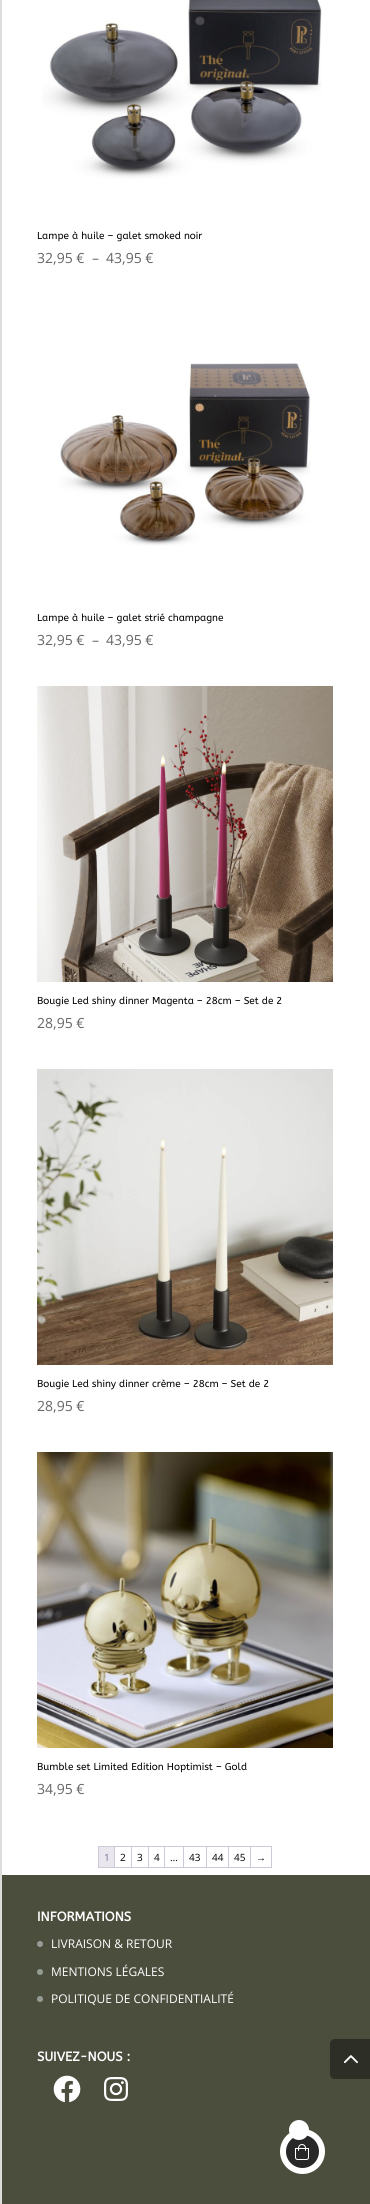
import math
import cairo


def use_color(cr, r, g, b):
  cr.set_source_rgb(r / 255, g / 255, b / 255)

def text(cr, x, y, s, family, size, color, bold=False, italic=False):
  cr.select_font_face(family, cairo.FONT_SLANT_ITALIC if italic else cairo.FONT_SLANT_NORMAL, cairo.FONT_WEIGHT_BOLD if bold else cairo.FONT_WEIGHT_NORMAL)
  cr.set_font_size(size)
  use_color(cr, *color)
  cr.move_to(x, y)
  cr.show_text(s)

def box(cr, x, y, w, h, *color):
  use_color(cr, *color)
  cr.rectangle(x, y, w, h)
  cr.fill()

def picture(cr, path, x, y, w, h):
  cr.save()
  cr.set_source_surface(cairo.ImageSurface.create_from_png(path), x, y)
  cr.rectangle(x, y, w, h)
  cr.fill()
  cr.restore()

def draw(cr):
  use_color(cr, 255, 255, 255)
  cr.paint()
  box(cr, 0, 0, 2, 2204, 221, 221, 221)
  box(cr, 2, 1875, 368, 329, 75, 77, 61)
  use_color(cr, 40, 40, 40)
  cr.arc(302.5, 2151.5, 19.5, 0, 2 * math.pi)
  cr.fill_preserve()
  use_color(cr, 255, 255, 255)
  cr.set_line_width(6)
  cr.stroke()
  cr.arc(299, 2130, 10, 0, 2 * math.pi)
  cr.fill()
  picture(cr, "img_01.png", 295, 2144, 14, 16)
  picture(cr, "img_02.png", 42, 0, 280, 179)
  picture(cr, "img_03.png", 60, 363, 251, 183)
  picture(cr, "img_04.png", 37, 686, 296, 296)
  picture(cr, "img_05.png", 37, 1069, 296, 296)
  picture(cr, "img_06.png", 37, 1452, 296, 296)
  box(cr, 98, 1846, 174, 1, 207, 200, 216)
  box(cr, 98, 1867, 174, 1, 207, 200, 216)
  box(cr, 98, 1846, 1, 22, 207, 200, 216)
  box(cr, 114, 1847, 1, 20, 207, 200, 216)
  box(cr, 99, 1847, 15, 20, 233, 230, 237)
  box(cr, 131, 1847, 1, 20, 207, 200, 216)
  box(cr, 148, 1847, 1, 20, 207, 200, 216)
  box(cr, 164, 1847, 1, 20, 207, 200, 216)
  box(cr, 183, 1847, 1, 20, 207, 200, 216)
  box(cr, 206, 1847, 1, 20, 207, 200, 216)
  box(cr, 228, 1847, 1, 20, 207, 200, 216)
  box(cr, 250, 1847, 1, 20, 207, 200, 216)
  box(cr, 271, 1847, 1, 20, 207, 200, 216)
  use_color(cr, 149, 157, 147)
  cr.arc(40, 1944, 3, 0, 2 * math.pi)
  cr.fill()
  cr.arc(40, 1972, 3, 0, 2 * math.pi)
  cr.fill()
  cr.arc(40, 1999, 3, 0, 2 * math.pi)
  cr.fill()
  picture(cr, "img_07.png", 53, 2075, 28, 28)
  picture(cr, "img_08.png", 104, 2077, 24, 24)
  use_color(cr, 45, 46, 37)
  cr.new_path()
  cr.move_to(335, 2039)
  cr.line_to(370, 2039)
  cr.line_to(370, 2079)
  cr.line_to(335, 2079)
  cr.curve_to(332, 2079, 330, 2077, 330, 2074)
  cr.line_to(330, 2044)
  cr.curve_to(330, 2041, 332, 2039, 335, 2039)
  cr.close_path()
  cr.fill()
  picture(cr, "img_09.png", 343, 2055, 15, 9)
  text(cr, 37, 239, "Lampe à huile – galet smoked noir", "ABeeZee", 10, (0, 0, 0))
  text(cr, 37, 263, "32,95 €", "Open Sans", 14, (102, 102, 102))
  text(cr, 92, 263, "–", "Open Sans", 14, (102, 102, 102))
  text(cr, 106, 263, "43,95 €", "Open Sans", 14, (102, 102, 102))
  text(cr, 37, 621, "Lampe à huile – galet strié champagne", "ABeeZee", 10, (0, 0, 0))
  text(cr, 37, 645, "32,95 €", "Open Sans", 14, (102, 102, 102))
  text(cr, 92, 645, "–", "Open Sans", 14, (102, 102, 102))
  text(cr, 106, 645, "43,95 €", "Open Sans", 14, (102, 102, 102))
  text(cr, 37, 1004, "Bougie Led shiny dinner Magenta – 28cm – Set de 2", "ABeeZee", 10, (0, 0, 0))
  text(cr, 37, 1028, "28,95 €", "Open Sans", 14, (102, 102, 102))
  text(cr, 37, 1387, "Bougie Led shiny dinner crème – 28cm – Set de 2", "ABeeZee", 10, (0, 0, 0))
  text(cr, 37, 1411, "28,95 €", "Open Sans", 14, (102, 102, 102))
  text(cr, 37, 1770, "Bumble set Limited Edition Hoptimist – Gold", "ABeeZee", 10, (0, 0, 0))
  text(cr, 37, 1794, "34,95 €", "Open Sans", 14, (102, 102, 102))
  text(cr, 104, 1861, "1", "Open Sans", 10, (129, 111, 152))
  text(cr, 120, 1861, "2", "Open Sans", 10, (0, 0, 0))
  text(cr, 137, 1861, "3", "Open Sans", 10, (0, 0, 0))
  text(cr, 154, 1861, "4", "Open Sans", 10, (0, 0, 0))
  text(cr, 170, 1861, "…", "Open Sans", 10, (0, 0, 0))
  text(cr, 189, 1861, "43", "Open Sans", 10, (0, 0, 0))
  text(cr, 212, 1861, "44", "Open Sans", 10, (0, 0, 0))
  text(cr, 234, 1861, "45", "Open Sans", 10, (0, 0, 0))
  text(cr, 256, 1861, "→", "Liberation Sans", 10, (0, 0, 0))
  text(cr, 37, 1921, "INFORMATIONS", "ABeeZee", 13, (255, 255, 255), bold=True)
  text(cr, 51, 1948, "LIVRAISON & RETOUR", "Open Sans", 12, (255, 255, 255))
  text(cr, 51, 1976, "MENTIONS LÉGALES", "Open Sans", 12, (255, 255, 255))
  text(cr, 51, 2003, "POLITIQUE DE CONFIDENTIALITÉ", "Open Sans", 12, (255, 255, 255))
  text(cr, 37, 2061, "SUIVEZ-NOUS :", "ABeeZee", 13, (255, 255, 255), bold=True)


surface = cairo.ImageSurface(cairo.FORMAT_RGB24, 370, 2204)
cr = cairo.Context(surface)
options = cairo.FontOptions()
options.set_hint_metrics(cairo.HINT_METRICS_OFF)
options.set_hint_style(cairo.HINT_STYLE_NONE)
cr.set_font_options(options)
cr.set_miter_limit(4)
draw(cr)
surface.write_to_png("out.png")
